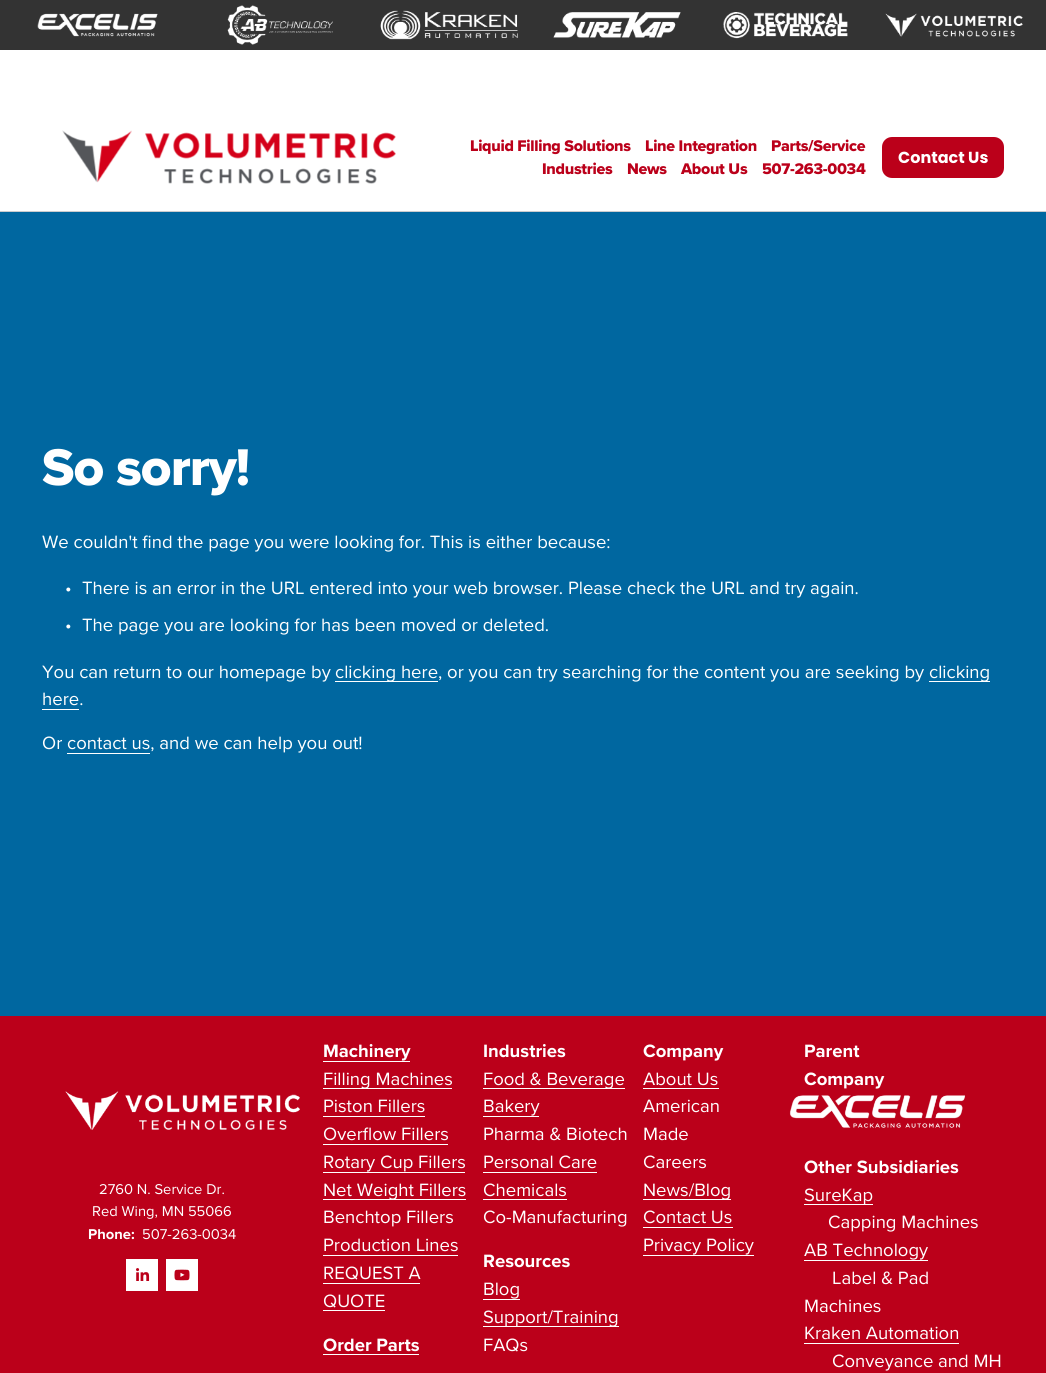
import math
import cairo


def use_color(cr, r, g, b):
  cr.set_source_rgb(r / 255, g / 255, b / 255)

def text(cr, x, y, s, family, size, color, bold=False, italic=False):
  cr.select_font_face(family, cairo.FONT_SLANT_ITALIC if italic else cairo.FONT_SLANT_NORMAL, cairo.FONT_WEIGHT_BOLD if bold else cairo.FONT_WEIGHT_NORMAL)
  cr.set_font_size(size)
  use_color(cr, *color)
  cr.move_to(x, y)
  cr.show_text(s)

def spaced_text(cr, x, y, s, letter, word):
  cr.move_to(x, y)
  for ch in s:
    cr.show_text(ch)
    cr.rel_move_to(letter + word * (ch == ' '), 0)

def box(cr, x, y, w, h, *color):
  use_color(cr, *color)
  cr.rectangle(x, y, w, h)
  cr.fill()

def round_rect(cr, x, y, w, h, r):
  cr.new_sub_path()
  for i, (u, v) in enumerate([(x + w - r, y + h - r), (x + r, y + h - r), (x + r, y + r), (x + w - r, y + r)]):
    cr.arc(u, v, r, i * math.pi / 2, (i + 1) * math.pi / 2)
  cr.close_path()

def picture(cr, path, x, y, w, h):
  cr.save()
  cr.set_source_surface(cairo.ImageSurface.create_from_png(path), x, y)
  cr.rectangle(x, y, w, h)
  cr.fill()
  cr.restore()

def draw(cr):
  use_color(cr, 187, 0, 26)
  cr.paint()
  box(cr, 0, 0, 1046, 50, 51, 51, 51)
  picture(cr, "img_01.png", 37, 13, 121, 24)
  picture(cr, "img_02.png", 227, 5, 106, 40)
  picture(cr, "img_03.png", 380, 10, 138, 30)
  picture(cr, "img_04.png", 553, 12, 128, 26)
  picture(cr, "img_05.png", 723, 12, 125, 27)
  picture(cr, "img_06.png", 885, 13, 138, 24)
  box(cr, 0, 50, 1046, 161, 255, 255, 255)
  picture(cr, "img_07.png", 62, 130, 334, 54)
  use_color(cr, 187, 0, 26)
  round_rect(cr, 882, 137, 122, 41, 10)
  cr.fill()
  box(cr, 0, 211, 1046, 1, 203, 204, 206)
  box(cr, 0, 212, 1046, 804, 0, 103, 160)
  box(cr, 335, 681, 103, 1, 255, 255, 255)
  box(cr, 929, 681, 61, 1, 255, 255, 255)
  box(cr, 42, 709, 37, 1, 255, 255, 255)
  box(cr, 67, 753, 83, 1, 255, 255, 255)
  box(cr, 323, 1061, 87, 1, 255, 255, 255)
  box(cr, 323, 1088, 129, 1, 255, 255, 255)
  box(cr, 323, 1116, 102, 1, 255, 255, 255)
  box(cr, 323, 1144, 125, 1, 255, 255, 255)
  box(cr, 323, 1172, 142, 1, 255, 255, 255)
  box(cr, 323, 1199, 143, 1, 255, 255, 255)
  box(cr, 323, 1255, 135, 1, 255, 255, 255)
  box(cr, 323, 1283, 97, 1, 255, 255, 255)
  box(cr, 323, 1310, 62, 1, 255, 255, 255)
  box(cr, 323, 1354, 96, 1, 255, 255, 255)
  box(cr, 483, 1088, 142, 1, 255, 255, 255)
  box(cr, 483, 1116, 56, 1, 255, 255, 255)
  box(cr, 483, 1172, 114, 1, 255, 255, 255)
  box(cr, 483, 1199, 84, 1, 255, 255, 255)
  box(cr, 483, 1299, 37, 1, 255, 255, 255)
  box(cr, 483, 1326, 136, 1, 255, 255, 255)
  box(cr, 643, 1088, 76, 1, 255, 255, 255)
  box(cr, 643, 1199, 88, 1, 255, 255, 255)
  box(cr, 643, 1227, 90, 1, 255, 255, 255)
  box(cr, 643, 1255, 111, 1, 255, 255, 255)
  picture(cr, "img_08.png", 65, 1091, 235, 39)
  picture(cr, "img_09.png", 789, 1095, 177, 33)
  box(cr, 804, 1204, 69, 1, 255, 255, 255)
  box(cr, 804, 1260, 124, 1, 255, 255, 255)
  box(cr, 804, 1343, 155, 1, 255, 255, 255)
  picture(cr, "img_10.png", 126, 1259, 32, 32)
  picture(cr, "img_11.png", 166, 1259, 32, 32)
  cr.select_font_face("Proxima Nova ExtraBold")
  cr.set_font_size(16)
  use_color(cr, 187, 0, 26)
  spaced_text(cr, 470, 151, "Liquid Filling Solutions", -0.3, 0)
  spaced_text(cr, 645, 151, "Line Integration", -0.3, 0)
  spaced_text(cr, 771, 151, "Parts/Service", -0.3, 0)
  spaced_text(cr, 542, 174, "Industries", -0.3, 0)
  spaced_text(cr, 627, 174, "News", -0.3, 0)
  spaced_text(cr, 681, 174, "About Us", -0.3, 0)
  spaced_text(cr, 762, 174, "507-263-0034", -0.3, 0)
  text(cr, 898, 163, "Contact Us", "Poppins", 16, (255, 255, 255), bold=True)
  cr.select_font_face("Proxima Nova ExtraBold")
  cr.set_font_size(53.5)
  spaced_text(cr, 42, 485, "So sorry!", -1, 0)
  text(cr, 42, 548, "We couldn't find the page you were looking for. This is either because:", "Proxima Nova", 18.5, (255, 255, 255))
  text(cr, 65, 594, "•", "Proxima Nova", 18.5, (255, 255, 255))
  text(cr, 82, 594, "There is an error in the URL entered into your web browser. Please check the URL and try again.", "Proxima Nova", 18.5, (255, 255, 255))
  text(cr, 65, 631, "•", "Proxima Nova", 18.5, (255, 255, 255))
  text(cr, 82, 631, "The page you are looking for has been moved or deleted.", "Proxima Nova", 18.5, (255, 255, 255))
  text(cr, 42, 678, "You can return to our homepage by", "Proxima Nova", 18.5, (255, 255, 255))
  text(cr, 335, 678, "clicking here, or you can try searching for the content you are seeking by", "Proxima Nova", 18.5, (255, 255, 255))
  text(cr, 929, 678, "clicking", "Proxima Nova", 18.5, (255, 255, 255))
  text(cr, 42, 705, "here.", "Proxima Nova", 18.5, (255, 255, 255))
  text(cr, 42, 749, "Or contact us, and we can help you out!", "Proxima Nova", 18.5, (255, 255, 255))
  text(cr, 323, 1057, "Machinery", "Proxima Nova", 18.5, (255, 255, 255), bold=True)
  text(cr, 323, 1085, "Filling Machines", "Proxima Nova", 18.5, (255, 255, 255))
  text(cr, 323, 1112, "Piston Fillers", "Proxima Nova", 18.5, (255, 255, 255))
  text(cr, 323, 1140, "Overflow Fillers", "Proxima Nova", 18.5, (255, 255, 255))
  text(cr, 323, 1168, "Rotary Cup Fillers", "Proxima Nova", 18.5, (255, 255, 255))
  text(cr, 323, 1196, "Net Weight Fillers", "Proxima Nova", 18.5, (255, 255, 255))
  text(cr, 323, 1223, "Benchtop Fillers", "Proxima Nova", 18.5, (255, 255, 255))
  text(cr, 323, 1251, "Production Lines", "Proxima Nova", 18.5, (255, 255, 255))
  text(cr, 323, 1279, "REQUEST A", "Proxima Nova", 18.5, (255, 255, 255))
  text(cr, 323, 1307, "QUOTE", "Proxima Nova", 18.5, (255, 255, 255))
  text(cr, 323, 1351, "Order Parts", "Proxima Nova", 18.5, (255, 255, 255), bold=True)
  text(cr, 483, 1057, "Industries", "Proxima Nova", 18.5, (255, 255, 255), bold=True)
  text(cr, 483, 1085, "Food & Beverage", "Proxima Nova", 18.5, (255, 255, 255))
  text(cr, 483, 1112, "Bakery", "Proxima Nova", 18.5, (255, 255, 255))
  text(cr, 483, 1140, "Pharma & Biotech", "Proxima Nova", 18.5, (255, 255, 255))
  text(cr, 483, 1168, "Personal Care", "Proxima Nova", 18.5, (255, 255, 255))
  text(cr, 483, 1196, "Chemicals", "Proxima Nova", 18.5, (255, 255, 255))
  text(cr, 483, 1223, "Co-Manufacturing", "Proxima Nova", 18.5, (255, 255, 255))
  text(cr, 483, 1267, "Resources", "Proxima Nova", 18.5, (255, 255, 255), bold=True)
  text(cr, 483, 1295, "Blog", "Proxima Nova", 18.5, (255, 255, 255))
  text(cr, 483, 1323, "Support/Training", "Proxima Nova", 18.5, (255, 255, 255))
  text(cr, 483, 1351, "FAQs", "Proxima Nova", 18.5, (255, 255, 255))
  text(cr, 643, 1057, "Company", "Proxima Nova", 18.5, (255, 255, 255), bold=True)
  text(cr, 643, 1085, "About Us", "Proxima Nova", 18.5, (255, 255, 255))
  text(cr, 643, 1112, "American", "Proxima Nova", 18.5, (255, 255, 255))
  text(cr, 643, 1140, "Made", "Proxima Nova", 18.5, (255, 255, 255))
  text(cr, 643, 1168, "Careers", "Proxima Nova", 18.5, (255, 255, 255))
  text(cr, 643, 1196, "News/Blog", "Proxima Nova", 18.5, (255, 255, 255))
  text(cr, 643, 1223, "Contact Us", "Proxima Nova", 18.5, (255, 255, 255))
  text(cr, 643, 1251, "Privacy Policy", "Proxima Nova", 18.5, (255, 255, 255))
  text(cr, 804, 1057, "Parent", "Proxima Nova", 18.5, (255, 255, 255), bold=True)
  text(cr, 804, 1085, "Company", "Proxima Nova", 18.5, (255, 255, 255), bold=True)
  text(cr, 99, 1194, "2760 N. Service Dr.", "Proxima Nova", 14.75, (255, 255, 255))
  text(cr, 92, 1216, "Red Wing, MN 55066", "Proxima Nova", 14.75, (255, 255, 255))
  text(cr, 88, 1239, "Phone:", "Proxima Nova", 14.75, (255, 255, 255), bold=True)
  text(cr, 142, 1239, "507-263-0034", "Proxima Nova", 14.75, (255, 255, 255))
  text(cr, 804, 1173, "Other Subsidiaries", "Proxima Nova", 18.5, (255, 255, 255), bold=True)
  text(cr, 804, 1201, "SureKap", "Proxima Nova", 18.5, (255, 255, 255))
  text(cr, 828, 1228, "Capping Machines", "Proxima Nova", 18.5, (255, 255, 255))
  text(cr, 804, 1256, "AB Technology", "Proxima Nova", 18.5, (255, 255, 255))
  text(cr, 832, 1284, "Label & Pad", "Proxima Nova", 18.5, (255, 255, 255))
  text(cr, 804, 1312, "Machines", "Proxima Nova", 18.5, (255, 255, 255))
  text(cr, 804, 1339, "Kraken Automation", "Proxima Nova", 18.5, (255, 255, 255))
  text(cr, 832, 1367, "Conveyance and MH", "Proxima Nova", 18.5, (255, 255, 255))


surface = cairo.ImageSurface(cairo.FORMAT_RGB24, 1046, 1373)
cr = cairo.Context(surface)
options = cairo.FontOptions()
options.set_hint_metrics(cairo.HINT_METRICS_OFF)
options.set_hint_style(cairo.HINT_STYLE_NONE)
cr.set_font_options(options)
cr.set_miter_limit(4)
draw(cr)
surface.write_to_png("out.png")
